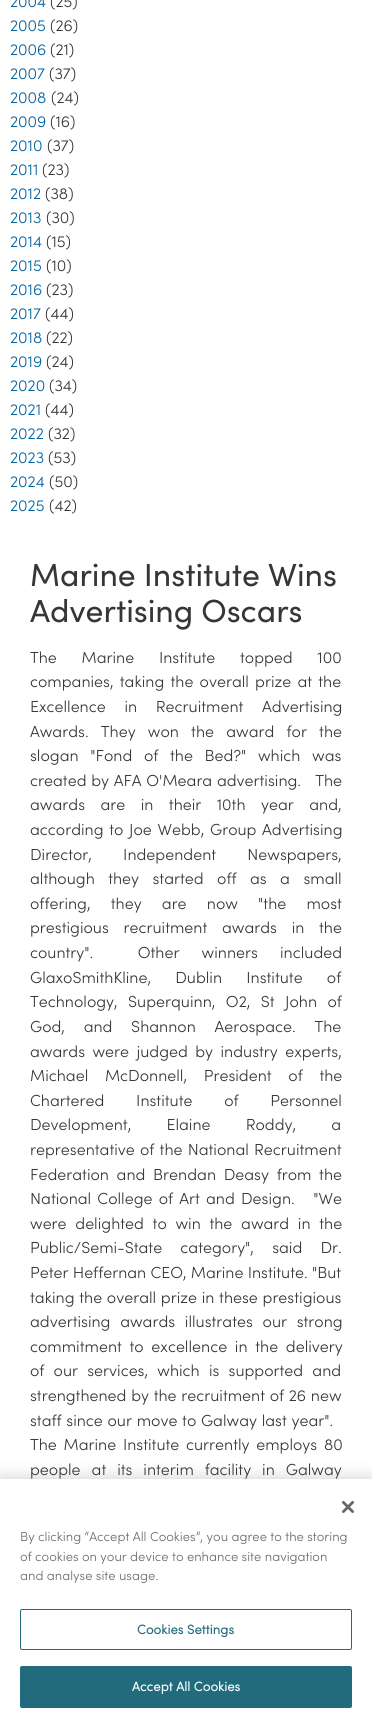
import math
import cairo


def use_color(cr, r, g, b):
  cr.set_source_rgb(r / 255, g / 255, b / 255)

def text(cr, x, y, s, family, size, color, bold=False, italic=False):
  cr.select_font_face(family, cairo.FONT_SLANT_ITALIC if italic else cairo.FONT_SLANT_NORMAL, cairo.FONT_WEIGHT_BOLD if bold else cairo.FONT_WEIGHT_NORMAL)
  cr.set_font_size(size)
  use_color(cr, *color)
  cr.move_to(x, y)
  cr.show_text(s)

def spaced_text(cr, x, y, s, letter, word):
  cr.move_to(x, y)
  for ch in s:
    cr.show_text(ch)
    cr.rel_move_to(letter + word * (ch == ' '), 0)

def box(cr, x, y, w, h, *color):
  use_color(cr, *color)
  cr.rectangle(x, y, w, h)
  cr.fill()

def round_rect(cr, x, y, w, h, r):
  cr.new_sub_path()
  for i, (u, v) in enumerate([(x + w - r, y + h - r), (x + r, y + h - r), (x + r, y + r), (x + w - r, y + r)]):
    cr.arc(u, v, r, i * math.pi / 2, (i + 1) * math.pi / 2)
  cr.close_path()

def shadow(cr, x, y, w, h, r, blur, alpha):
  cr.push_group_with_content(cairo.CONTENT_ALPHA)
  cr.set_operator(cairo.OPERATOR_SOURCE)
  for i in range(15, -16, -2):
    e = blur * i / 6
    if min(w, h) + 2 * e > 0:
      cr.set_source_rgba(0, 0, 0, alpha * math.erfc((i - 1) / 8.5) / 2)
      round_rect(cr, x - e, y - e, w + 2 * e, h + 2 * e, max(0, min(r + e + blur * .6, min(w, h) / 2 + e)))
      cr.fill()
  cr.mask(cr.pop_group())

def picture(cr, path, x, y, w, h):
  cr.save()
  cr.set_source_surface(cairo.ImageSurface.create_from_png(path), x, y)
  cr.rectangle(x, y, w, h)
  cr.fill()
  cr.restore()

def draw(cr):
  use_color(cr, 255, 255, 255)
  cr.paint()
  use_color(cr, 0, 0, 0)
  shadow(cr, 0, 1479, 372, 245, 0, 9, 0.2)
  box(cr, 0, 1479, 372, 245, 255, 255, 255)
  picture(cr, "img_01.png", 342, 1501, 12, 12)
  round_rect(cr, 20.5, 1609.5, 331, 40, 1.5)
  use_color(cr, 34, 107, 125)
  cr.set_line_width(1)
  cr.stroke()
  round_rect(cr, 20.5, 1666.5, 331, 41, 1.5)
  cr.fill_preserve()
  cr.stroke()
  text(cr, 10, 7, "2004", "Sofia Light", 16, (0, 98, 160))
  text(cr, 50, 7, "(25)", "Sofia Light", 16, (54, 54, 54))
  text(cr, 10, 31, "2005", "Sofia Light", 16, (0, 98, 160))
  text(cr, 50, 31, "(26)", "Sofia Light", 16, (54, 54, 54))
  text(cr, 10, 55, "2006", "Sofia Light", 16, (0, 98, 160))
  text(cr, 50, 55, "(21)", "Sofia Light", 16, (54, 54, 54))
  text(cr, 10, 79, "2007", "Sofia Light", 16, (0, 98, 160))
  text(cr, 49, 79, "(37)", "Sofia Light", 16, (54, 54, 54))
  text(cr, 10, 103, "2008", "Sofia Light", 16, (0, 98, 160))
  text(cr, 51, 103, "(24)", "Sofia Light", 16, (54, 54, 54))
  text(cr, 10, 127, "2009", "Sofia Light", 16, (0, 98, 160))
  text(cr, 50, 127, "(16)", "Sofia Light", 16, (54, 54, 54))
  text(cr, 10, 151, "2010", "Sofia Light", 16, (0, 98, 160))
  text(cr, 47, 151, "(37)", "Sofia Light", 16, (54, 54, 54))
  text(cr, 10, 175, "2011", "Sofia Light", 16, (0, 98, 160))
  text(cr, 42, 175, "(23)", "Sofia Light", 16, (54, 54, 54))
  text(cr, 10, 199, "2012", "Sofia Light", 16, (0, 98, 160))
  text(cr, 45, 199, "(38)", "Sofia Light", 16, (54, 54, 54))
  text(cr, 10, 223, "2013", "Sofia Light", 16, (0, 98, 160))
  text(cr, 46, 223, "(30)", "Sofia Light", 16, (54, 54, 54))
  text(cr, 10, 247, "2014", "Sofia Light", 16, (0, 98, 160))
  text(cr, 46, 247, "(15)", "Sofia Light", 16, (54, 54, 54))
  text(cr, 10, 271, "2015", "Sofia Light", 16, (0, 98, 160))
  text(cr, 46, 271, "(10)", "Sofia Light", 16, (54, 54, 54))
  text(cr, 10, 295, "2016", "Sofia Light", 16, (0, 98, 160))
  text(cr, 46, 295, "(23)", "Sofia Light", 16, (54, 54, 54))
  text(cr, 10, 319, "2017", "Sofia Light", 16, (0, 98, 160))
  text(cr, 45, 319, "(44)", "Sofia Light", 16, (54, 54, 54))
  text(cr, 10, 343, "2018", "Sofia Light", 16, (0, 98, 160))
  text(cr, 46, 343, "(22)", "Sofia Light", 16, (54, 54, 54))
  text(cr, 10, 367, "2019", "Sofia Light", 16, (0, 98, 160))
  text(cr, 46, 367, "(24)", "Sofia Light", 16, (54, 54, 54))
  text(cr, 10, 391, "2020", "Sofia Light", 16, (0, 98, 160))
  text(cr, 49, 391, "(34)", "Sofia Light", 16, (54, 54, 54))
  text(cr, 10, 415, "2021", "Sofia Light", 16, (0, 98, 160))
  text(cr, 45, 415, "(44)", "Sofia Light", 16, (54, 54, 54))
  text(cr, 10, 439, "2022", "Sofia Light", 16, (0, 98, 160))
  text(cr, 48, 439, "(32)", "Sofia Light", 16, (54, 54, 54))
  text(cr, 10, 463, "2023", "Sofia Light", 16, (0, 98, 160))
  text(cr, 48, 463, "(53)", "Sofia Light", 16, (54, 54, 54))
  text(cr, 10, 487, "2024", "Sofia Light", 16, (0, 98, 160))
  text(cr, 49, 487, "(50)", "Sofia Light", 16, (54, 54, 54))
  text(cr, 10, 511, "2025", "Sofia Light", 16, (0, 98, 160))
  text(cr, 49, 511, "(42)", "Sofia Light", 16, (54, 54, 54))
  text(cr, 30, 586, "Marine Institute Wins", "Sofia", 32, (54, 54, 54))
  text(cr, 30, 622, "Advertising Oscars", "Sofia", 32, (54, 54, 54))
  cr.select_font_face("Sofia Light")
  cr.set_font_size(16)
  spaced_text(cr, 30, 663, "The Marine Institute topped 100", 0, 20.5)
  spaced_text(cr, 30, 687, "companies, taking the overall prize at the", 0, 2)
  spaced_text(cr, 30, 712, "Excellence in Recruitment Advertising", 0, 14.5)
  spaced_text(cr, 30, 737, "Awards. They won the award for the", 0, 8)
  spaced_text(cr, 30, 761, "slogan \"Fond of the Bed?\" which was", 0, 7.5)
  spaced_text(cr, 30, 786, "created by AFA O'Meara advertising.   The", 0, 0.5)
  spaced_text(cr, 30, 810, "awards are in their 10th year and,", 0, 11.25)
  spaced_text(cr, 30, 835, "according to Joe Webb, Group Advertising", 0, 1.5)
  spaced_text(cr, 30, 860, "Director, Independent Newspapers,", 0, 27)
  spaced_text(cr, 30, 884, "although they started off as a small", 0, 9.25)
  spaced_text(cr, 30, 909, "offering, they are now \"the most", 0, 16)
  spaced_text(cr, 30, 933, "prestigious recruitment awards in the", 0, 10.5)
  spaced_text(cr, 30, 958, "country\".  Other winners included", 0, 18)
  spaced_text(cr, 30, 983, "GlaxoSmithKline, Dublin Institute of", 0, 20)
  spaced_text(cr, 30, 1007, "Technology, Superquinn, O2, St John of", 0, 6.25)
  spaced_text(cr, 30, 1032, "God, and Shannon Aerospace. The", 0, 14.5)
  spaced_text(cr, 30, 1057, "awards were judged by industry experts,", 0, 3.25)
  spaced_text(cr, 30, 1081, "Michael McDonnell, President of the", 0, 12.5)
  spaced_text(cr, 30, 1106, "Chartered Institute of Personnel", 0, 27.5)
  spaced_text(cr, 30, 1130, "Development, Elaine Roddy, a", 0, 31)
  spaced_text(cr, 30, 1155, "representative of the National Recruitment", 0, 1)
  spaced_text(cr, 30, 1180, "Federation and Brendan Deasy from the", 0, 3.5)
  spaced_text(cr, 30, 1204, "National College of Art and Design.   \"We", 0, 2)
  spaced_text(cr, 30, 1229, "were delighted to win the award in the", 0, 4.5)
  spaced_text(cr, 30, 1253, "Public/Semi-State category\", said Dr.", 0, 14)
  text(cr, 30, 1278, "Peter Heffernan CEO, Marine Institute. \"But", "Sofia Light", 16, (54, 54, 54))
  spaced_text(cr, 30, 1303, "taking the overall prize in these prestigious", 0, 0.5)
  spaced_text(cr, 30, 1327, "advertising awards illustrates our strong", 0, 5.5)
  spaced_text(cr, 30, 1352, "commitment to excellence in the delivery", 0, 3.5)
  spaced_text(cr, 30, 1376, "of our services, which is supported and", 0, 5)
  spaced_text(cr, 30, 1401, "strengthened by the recruitment of 26 new", 0, 0.5)
  spaced_text(cr, 30, 1426, "staff since our move to Galway last year\".", 0, 0.5)
  spaced_text(cr, 30, 1450, "The Marine Institute currently employs 80", 0, 2.5)
  spaced_text(cr, 30, 1475, "people at its interim facility in Galway", 0, 6.75)
  text(cr, 20, 1541, "By clicking “Accept All Cookies”, you agree to the storing", "Sofia Light", 13, (105, 105, 105))
  text(cr, 20, 1561, "of cookies on your device to enhance site navigation", "Sofia Light", 13, (105, 105, 105))
  text(cr, 20, 1580, "and analyse site usage.", "Sofia Light", 13, (105, 105, 105))
  cr.select_font_face("Sofia", cairo.FONT_SLANT_NORMAL, cairo.FONT_WEIGHT_BOLD)
  use_color(cr, 34, 107, 125)
  spaced_text(cr, 137, 1634, "Cookies Settings", 0.1, 0)
  use_color(cr, 255, 255, 255)
  spaced_text(cr, 132, 1691, "Accept All Cookies", 0.1, 0)


surface = cairo.ImageSurface(cairo.FORMAT_RGB24, 372, 1724)
cr = cairo.Context(surface)
options = cairo.FontOptions()
options.set_hint_metrics(cairo.HINT_METRICS_OFF)
options.set_hint_style(cairo.HINT_STYLE_NONE)
cr.set_font_options(options)
cr.set_miter_limit(4)
draw(cr)
surface.write_to_png("out.png")
